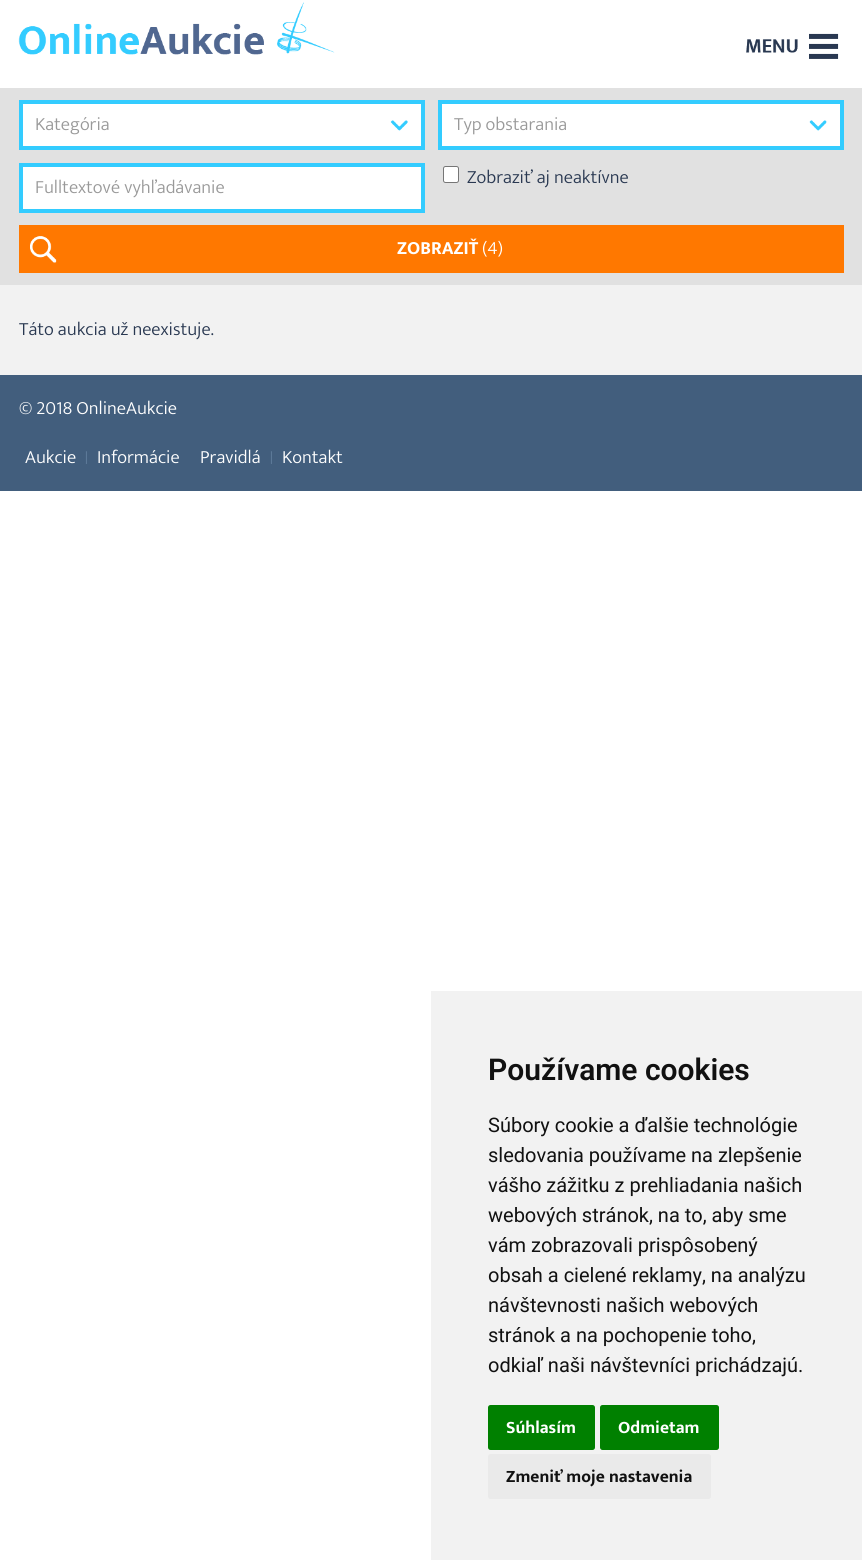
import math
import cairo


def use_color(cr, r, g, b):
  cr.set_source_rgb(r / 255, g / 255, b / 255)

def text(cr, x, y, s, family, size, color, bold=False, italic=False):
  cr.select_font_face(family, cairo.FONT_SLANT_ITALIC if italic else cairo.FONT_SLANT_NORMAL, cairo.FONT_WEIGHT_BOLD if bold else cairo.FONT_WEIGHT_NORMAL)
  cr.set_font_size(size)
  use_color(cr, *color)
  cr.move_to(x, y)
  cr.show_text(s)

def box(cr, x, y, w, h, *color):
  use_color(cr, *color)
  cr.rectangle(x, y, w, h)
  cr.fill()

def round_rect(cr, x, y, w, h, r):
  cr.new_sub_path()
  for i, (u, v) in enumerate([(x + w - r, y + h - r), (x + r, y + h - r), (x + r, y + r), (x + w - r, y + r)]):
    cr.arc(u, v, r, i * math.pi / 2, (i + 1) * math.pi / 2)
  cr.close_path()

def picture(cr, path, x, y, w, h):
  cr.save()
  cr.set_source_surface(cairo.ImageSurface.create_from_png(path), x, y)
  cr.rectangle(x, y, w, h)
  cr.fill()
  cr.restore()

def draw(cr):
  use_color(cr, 255, 255, 255)
  cr.paint()
  picture(cr, "img_01.png", 18, 2, 317, 53)
  picture(cr, "img_02.png", 746, 33, 93, 26)
  box(cr, 0, 88, 862, 197, 225, 225, 225)
  box(cr, 23, 104, 398, 42, 255, 255, 255)
  picture(cr, "img_03.png", 390, 120, 18, 11)
  cr.rectangle(21, 102, 402, 46)
  use_color(cr, 51, 204, 255)
  cr.set_line_width(4)
  cr.stroke()
  box(cr, 442, 104, 398, 42, 255, 255, 255)
  picture(cr, "img_04.png", 809, 120, 18, 11)
  cr.rectangle(440, 102, 402, 46)
  use_color(cr, 51, 204, 255)
  cr.stroke()
  use_color(cr, 255, 255, 255)
  cr.rectangle(21, 165, 402, 46)
  cr.fill_preserve()
  use_color(cr, 51, 204, 255)
  cr.stroke()
  use_color(cr, 255, 255, 255)
  round_rect(cr, 443.5, 166.5, 15, 16, 2)
  cr.fill_preserve()
  use_color(cr, 118, 118, 118)
  cr.set_line_width(1)
  cr.stroke()
  box(cr, 19, 225, 825, 48, 255, 120, 0)
  picture(cr, "img_05.png", 30, 236, 27, 27)
  box(cr, 0, 285, 862, 90, 242, 242, 242)
  box(cr, 0, 375, 862, 116, 66, 94, 125)
  box(cr, 431, 991, 431, 569, 242, 242, 242)
  use_color(cr, 0, 128, 0)
  round_rect(cr, 488, 1405, 107, 45, 2.5)
  cr.fill()
  round_rect(cr, 600, 1405, 119, 45, 2.5)
  cr.fill()
  use_color(cr, 234, 234, 234)
  round_rect(cr, 488, 1454, 223, 45, 2.5)
  cr.fill()
  text(cr, 35, 130, "Kategória", "Ek Mukta Light", 18.75, (153, 153, 153))
  text(cr, 454, 130, "Typ obstarania", "Ek Mukta Light", 18.75, (153, 153, 153))
  text(cr, 35, 193, "Fulltextové vyhľadávanie", "Ek Mukta Light", 18.75, (153, 153, 153))
  text(cr, 467, 183, "Zobraziť aj neaktívne", "Ek Mukta Light", 18.75, (41, 56, 81))
  text(cr, 397, 254, "ZOBRAZIŤ", "Ek Mukta", 18.75, (255, 255, 255), bold=True)
  text(cr, 482, 254, "(4)", "Ek Mukta Light", 18.75, (255, 255, 255))
  text(cr, 19, 335, "Táto aukcia už neexistuje.", "Ek Mukta Light", 18.75, (41, 56, 81))
  text(cr, 19, 414, "© 2018 OnlineAukcie", "Ek Mukta Light", 18.75, (255, 255, 255))
  text(cr, 25, 463, "Aukcie", "Ek Mukta Light", 18.75, (255, 255, 255))
  text(cr, 85, 461, "|", "Ek Mukta Light", 13, (102, 130, 161))
  text(cr, 97, 463, "Informácie", "Ek Mukta Light", 18.75, (255, 255, 255))
  text(cr, 200, 463, "Pravidlá", "Ek Mukta Light", 18.75, (255, 255, 255))
  text(cr, 270, 461, "|", "Ek Mukta Light", 13, (102, 130, 161))
  text(cr, 282, 463, "Kontakt", "Ek Mukta Light", 18.75, (255, 255, 255))
  text(cr, 488, 1080, "Používame cookies", "Roboto SemiBold", 30, (17, 17, 17))
  text(cr, 488, 1132, "Súbory cookie a ďalšie technológie", "Roboto", 20, (17, 17, 17))
  text(cr, 488, 1162, "sledovania používame na zlepšenie", "Roboto", 20, (17, 17, 17))
  text(cr, 488, 1192, "vášho zážitku z prehliadania našich", "Roboto", 20, (17, 17, 17))
  text(cr, 488, 1222, "webových stránok, na to, aby sme", "Roboto", 20, (17, 17, 17))
  text(cr, 488, 1252, "vám zobrazovali prispôsobený", "Roboto", 20, (17, 17, 17))
  text(cr, 488, 1282, "obsah a cielené reklamy, na analýzu", "Roboto", 20, (17, 17, 17))
  text(cr, 488, 1312, "návštevnosti našich webových", "Roboto", 20, (17, 17, 17))
  text(cr, 488, 1342, "stránok a na pochopenie toho,", "Roboto", 20, (17, 17, 17))
  text(cr, 488, 1372, "odkiaľ naši návštevníci prichádzajú.", "Roboto", 20, (17, 17, 17))
  text(cr, 506, 1433, "Súhlasím", "Ek Mukta", 17.5, (255, 255, 255), bold=True)
  text(cr, 618, 1433, "Odmietam", "Ek Mukta", 17.5, (255, 255, 255), bold=True)
  text(cr, 506, 1482, "Zmeniť moje nastavenia", "Ek Mukta", 17.5, (17, 17, 17), bold=True)


surface = cairo.ImageSurface(cairo.FORMAT_RGB24, 862, 1560)
cr = cairo.Context(surface)
options = cairo.FontOptions()
options.set_hint_metrics(cairo.HINT_METRICS_OFF)
options.set_hint_style(cairo.HINT_STYLE_NONE)
cr.set_font_options(options)
cr.set_miter_limit(4)
draw(cr)
surface.write_to_png("out.png")
